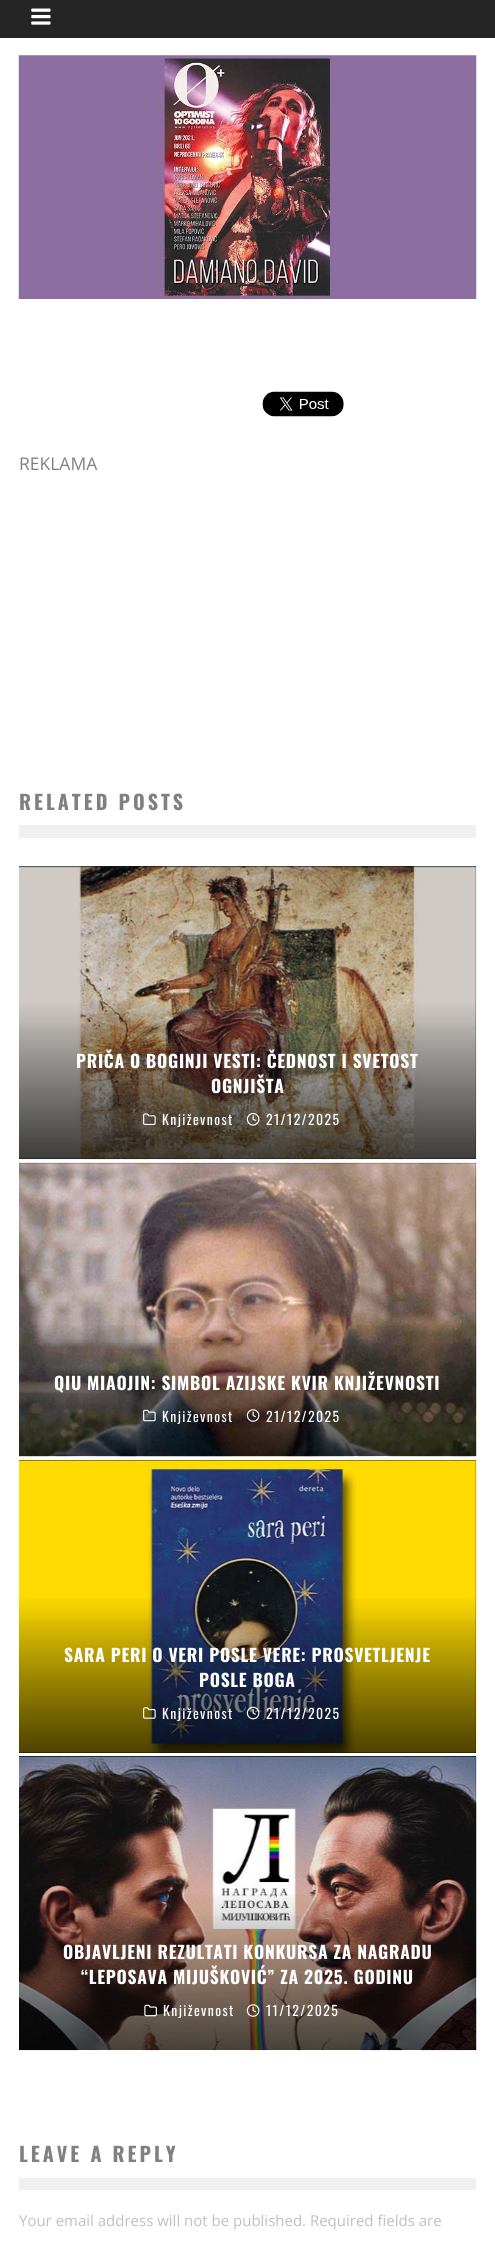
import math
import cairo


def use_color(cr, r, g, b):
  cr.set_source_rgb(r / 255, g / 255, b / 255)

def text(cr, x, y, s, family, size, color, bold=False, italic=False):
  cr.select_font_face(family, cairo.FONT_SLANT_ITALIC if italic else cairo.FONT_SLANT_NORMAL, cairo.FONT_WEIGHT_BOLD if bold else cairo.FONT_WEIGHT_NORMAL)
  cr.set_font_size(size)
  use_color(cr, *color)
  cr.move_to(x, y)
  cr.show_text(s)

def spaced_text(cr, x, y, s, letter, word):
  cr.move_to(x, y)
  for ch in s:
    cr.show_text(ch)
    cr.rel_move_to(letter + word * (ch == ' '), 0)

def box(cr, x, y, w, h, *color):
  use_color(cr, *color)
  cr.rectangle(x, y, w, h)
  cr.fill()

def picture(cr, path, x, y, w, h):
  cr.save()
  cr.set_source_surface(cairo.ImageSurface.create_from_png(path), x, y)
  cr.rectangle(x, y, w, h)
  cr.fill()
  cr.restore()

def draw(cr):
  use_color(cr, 255, 255, 255)
  cr.paint()
  box(cr, 0, 0, 495, 38, 37, 37, 37)
  picture(cr, "img_01.png", 31, 8, 20, 17)
  picture(cr, "img_02.png", 18, 55, 459, 244)
  picture(cr, "img_03.png", 262, 391, 82, 26)
  box(cr, 19, 825, 457, 13, 240, 240, 240)
  box(cr, 19, 866, 457, 293, 13, 13, 13)
  picture(cr, "img_04.png", 19, 866, 458, 294)
  gradient = cairo.LinearGradient(248, 999, 248, 1159)
  gradient.add_color_stop_rgba(0, 0, 0, 0, 0)
  gradient.add_color_stop_rgba(1, 0, 0, 0, 0.65)
  cr.set_source(gradient)
  cr.rectangle(19, 1004, 457, 155)
  cr.fill()
  gradient = cairo.LinearGradient(248, 999, 248, 1159)
  gradient.add_color_stop_rgba(0, 0, 0, 0, 0)
  gradient.add_color_stop_rgba(1, 0, 0, 0, 0.13)
  cr.set_source(gradient)
  cr.rectangle(19, 1026, 457, 133)
  cr.fill()
  picture(cr, "img_05.png", 143, 1113, 13, 12)
  picture(cr, "img_06.png", 246, 1113, 14, 13)
  box(cr, 19, 1163, 457, 293, 13, 13, 13)
  picture(cr, "img_07.png", 19, 1162, 458, 295)
  gradient = cairo.LinearGradient(248, 1320, 248, 1456)
  gradient.add_color_stop_rgba(0, 0, 0, 0, 0)
  gradient.add_color_stop_rgba(1, 0, 0, 0, 0.65)
  cr.set_source(gradient)
  cr.rectangle(19, 1325, 457, 131)
  cr.fill()
  gradient = cairo.LinearGradient(248, 1320, 248, 1456)
  gradient.add_color_stop_rgba(0, 0, 0, 0, 0)
  gradient.add_color_stop_rgba(1, 0, 0, 0, 0.13)
  cr.set_source(gradient)
  cr.rectangle(19, 1343, 457, 113)
  cr.fill()
  picture(cr, "img_08.png", 143, 1409, 13, 13)
  picture(cr, "img_09.png", 246, 1409, 14, 13)
  box(cr, 19, 1460, 457, 293, 13, 13, 13)
  picture(cr, "img_10.png", 19, 1460, 458, 293)
  gradient = cairo.LinearGradient(248, 1593, 248, 1753)
  gradient.add_color_stop_rgba(0, 0, 0, 0, 0)
  gradient.add_color_stop_rgba(1, 0, 0, 0, 0.65)
  cr.set_source(gradient)
  cr.rectangle(19, 1598, 457, 155)
  cr.fill()
  gradient = cairo.LinearGradient(248, 1593, 248, 1753)
  gradient.add_color_stop_rgba(0, 0, 0, 0, 0)
  gradient.add_color_stop_rgba(1, 0, 0, 0, 0.13)
  cr.set_source(gradient)
  cr.rectangle(19, 1620, 457, 133)
  cr.fill()
  picture(cr, "img_11.png", 143, 1707, 13, 12)
  picture(cr, "img_12.png", 246, 1706, 14, 14)
  box(cr, 19, 1756, 457, 294, 13, 13, 13)
  picture(cr, "img_13.png", 19, 1756, 458, 295)
  gradient = cairo.LinearGradient(248, 1889, 248, 2050)
  gradient.add_color_stop_rgba(0, 0, 0, 0, 0)
  gradient.add_color_stop_rgba(1, 0, 0, 0, 0.65)
  cr.set_source(gradient)
  cr.rectangle(19, 1894, 457, 156)
  cr.fill()
  gradient = cairo.LinearGradient(248, 1889, 248, 2050)
  gradient.add_color_stop_rgba(0, 0, 0, 0, 0)
  gradient.add_color_stop_rgba(1, 0, 0, 0, 0.13)
  cr.set_source(gradient)
  cr.rectangle(19, 1916, 457, 134)
  cr.fill()
  picture(cr, "img_14.png", 144, 2004, 13, 13)
  picture(cr, "img_15.png", 246, 2004, 14, 13)
  box(cr, 19, 2178, 457, 12, 240, 240, 240)
  text(cr, 19, 470, "REKLAMA", "Open Sans", 17.5, (128, 128, 128))
  cr.select_font_face("Oswald", cairo.FONT_SLANT_NORMAL, cairo.FONT_WEIGHT_BOLD)
  cr.set_font_size(20)
  spaced_text(cr, 19, 810, "RELATED POSTS", 3, 0)
  cr.set_font_size(17.5)
  use_color(cr, 255, 255, 255)
  spaced_text(cr, 76, 1068, "PRIČA O BOGINJI VESTI: ČEDNOST I SVETOST", 0.7, 0)
  spaced_text(cr, 211, 1093, "OGNJIŠTA", 0.7, 0)
  cr.select_font_face("Oswald")
  cr.set_font_size(13.75)
  spaced_text(cr, 162, 1125, "Književnost", 1.4, 0)
  spaced_text(cr, 266, 1125, "21/12/2025", 1.4, 0)
  cr.select_font_face("Oswald", cairo.FONT_SLANT_NORMAL, cairo.FONT_WEIGHT_BOLD)
  cr.set_font_size(17.5)
  spaced_text(cr, 54, 1390, "QIU MIAOJIN: SIMBOL AZIJSKE KVIR KNJIŽEVNOSTI", 0.7, 0)
  cr.select_font_face("Oswald")
  cr.set_font_size(13.75)
  spaced_text(cr, 162, 1422, "Književnost", 1.4, 0)
  spaced_text(cr, 266, 1422, "21/12/2025", 1.4, 0)
  cr.select_font_face("Oswald", cairo.FONT_SLANT_NORMAL, cairo.FONT_WEIGHT_BOLD)
  cr.set_font_size(17.5)
  spaced_text(cr, 64, 1662, "SARA PERI O VERI POSLE VERE: PROSVETLJENJE", 0.7, 0)
  spaced_text(cr, 199, 1687, "POSLE BOGA", 0.7, 0)
  cr.select_font_face("Oswald")
  cr.set_font_size(13.75)
  spaced_text(cr, 162, 1719, "Književnost", 1.4, 0)
  spaced_text(cr, 266, 1719, "21/12/2025", 1.4, 0)
  cr.select_font_face("Oswald", cairo.FONT_SLANT_NORMAL, cairo.FONT_WEIGHT_BOLD)
  cr.set_font_size(17.5)
  spaced_text(cr, 63, 1959, "OBJAVLJENI REZULTATI KONKURSA ZA NAGRADU", 0.7, 0)
  spaced_text(cr, 81, 1984, "“LEPOSAVA MIJUŠKOVIĆ” ZA 2025. GODINU", 0.7, 0)
  cr.select_font_face("Oswald")
  cr.set_font_size(13.75)
  spaced_text(cr, 163, 2016, "Književnost", 1.4, 0)
  spaced_text(cr, 266, 2016, "11/12/2025", 1.4, 0)
  cr.select_font_face("Oswald", cairo.FONT_SLANT_NORMAL, cairo.FONT_WEIGHT_BOLD)
  cr.set_font_size(20)
  use_color(cr, 128, 128, 128)
  spaced_text(cr, 19, 2162, "LEAVE A REPLY", 3, 0)
  text(cr, 19, 2226, "Your email address will not be published. Required fields are", "Open Sans", 15, (192, 192, 192))


surface = cairo.ImageSurface(cairo.FORMAT_RGB24, 495, 2241)
cr = cairo.Context(surface)
options = cairo.FontOptions()
options.set_hint_metrics(cairo.HINT_METRICS_OFF)
options.set_hint_style(cairo.HINT_STYLE_NONE)
cr.set_font_options(options)
cr.set_miter_limit(4)
draw(cr)
surface.write_to_png("out.png")
